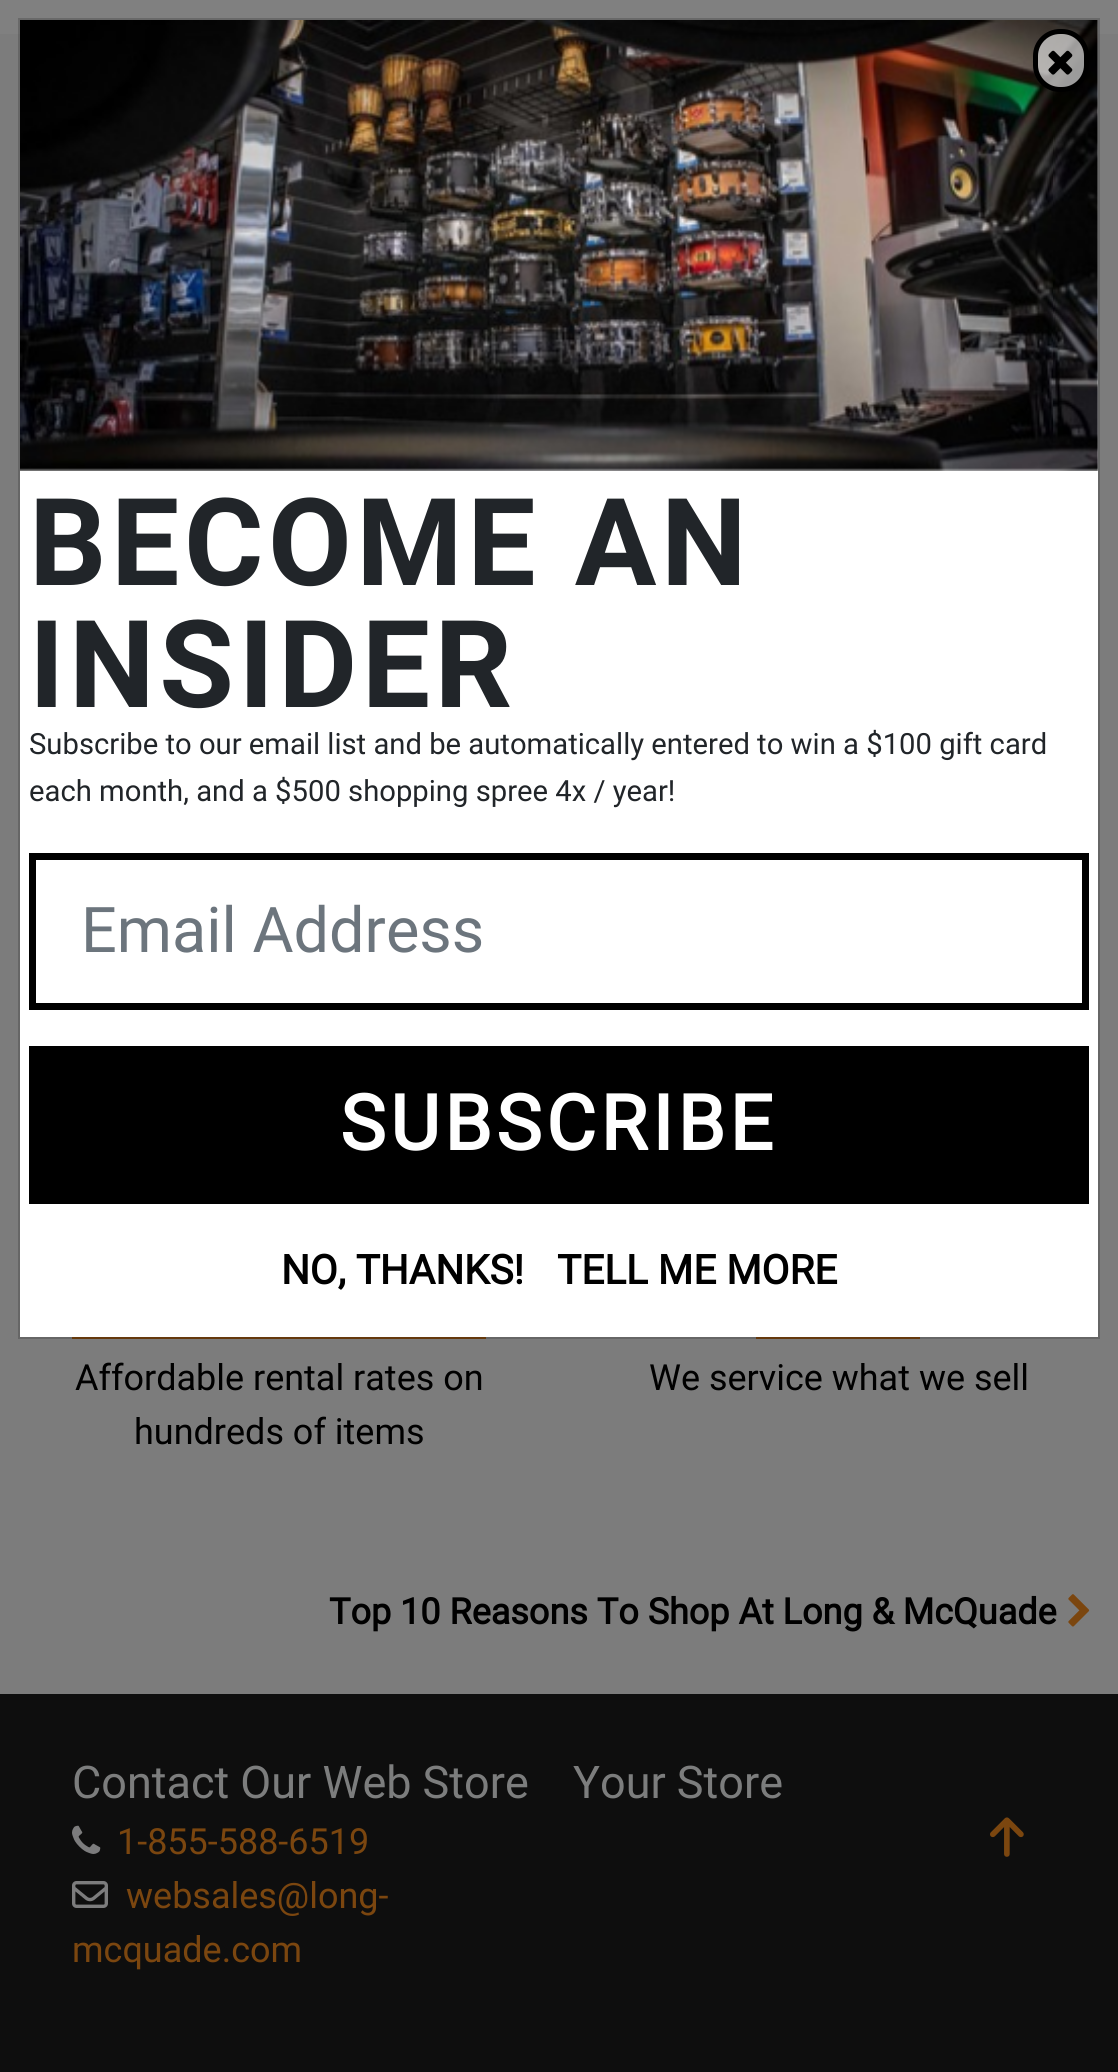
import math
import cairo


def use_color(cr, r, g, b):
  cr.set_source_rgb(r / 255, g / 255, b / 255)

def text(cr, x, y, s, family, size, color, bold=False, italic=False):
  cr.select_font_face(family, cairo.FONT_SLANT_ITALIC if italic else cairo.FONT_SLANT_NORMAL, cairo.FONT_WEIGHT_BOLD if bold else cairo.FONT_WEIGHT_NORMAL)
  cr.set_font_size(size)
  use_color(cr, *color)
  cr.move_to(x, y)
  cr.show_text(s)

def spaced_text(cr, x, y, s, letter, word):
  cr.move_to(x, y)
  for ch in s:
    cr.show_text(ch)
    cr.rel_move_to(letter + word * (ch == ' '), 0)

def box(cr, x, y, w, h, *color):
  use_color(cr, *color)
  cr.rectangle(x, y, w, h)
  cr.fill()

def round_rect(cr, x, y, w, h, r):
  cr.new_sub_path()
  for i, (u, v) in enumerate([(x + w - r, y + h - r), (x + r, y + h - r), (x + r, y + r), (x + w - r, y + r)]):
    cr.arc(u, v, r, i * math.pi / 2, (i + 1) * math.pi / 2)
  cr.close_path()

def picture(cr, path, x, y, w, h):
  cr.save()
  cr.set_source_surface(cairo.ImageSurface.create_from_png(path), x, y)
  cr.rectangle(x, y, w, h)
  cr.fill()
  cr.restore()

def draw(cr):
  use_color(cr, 128, 128, 128)
  cr.paint()
  box(cr, 0, 34, 1118, 1660, 124, 124, 124)
  box(cr, 20, 20, 1078, 1317, 255, 255, 255)
  box(cr, 72, 1337, 414, 2, 123, 70, 15)
  box(cr, 756, 1337, 164, 2, 123, 70, 15)
  cr.rectangle(19, 19, 1080, 1319)
  cr.set_source_rgba(0, 0, 0, 0.18)
  cr.stroke()
  picture(cr, "img_01.png", 20, 20, 1078, 451)
  cr.set_source_rgba(0.867, 0.867, 0.867, 0.7)
  round_rect(cr, 1035.5, 31.5, 51, 58, 24.5)
  cr.fill_preserve()
  use_color(cr, 0, 0, 0)
  cr.set_line_width(5)
  cr.stroke()
  picture(cr, "img_02.png", 1048, 50, 25, 25)
  cr.rectangle(32.5, 856.5, 1053, 150)
  cr.set_line_width(7)
  cr.stroke()
  box(cr, 29, 1046, 1060, 158, 0, 0, 0)
  picture(cr, "img_03.png", 1068, 1594, 22, 33)
  box(cr, 0, 1694, 1118, 378, 14, 14, 14)
  picture(cr, "img_04.png", 72, 1825, 29, 29)
  picture(cr, "img_05.png", 72, 1881, 36, 27)
  picture(cr, "img_06.png", 990, 1817, 34, 40)
  cr.select_font_face("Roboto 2", cairo.FONT_SLANT_NORMAL, cairo.FONT_WEIGHT_BOLD)
  cr.set_font_size(121.5)
  use_color(cr, 33, 37, 41)
  spaced_text(cr, 29, 585, "BECOME AN", 4.5, 0)
  spaced_text(cr, 29, 707, "INSIDER", 4.5, 0)
  text(cr, 29, 754, "Subscribe to our email list and be automatically entered to win a $100 gift card", "Roboto", 29.25, (33, 37, 41))
  text(cr, 29, 801, "each month, and a $500 shopping spree 4x / year!", "Roboto", 29.25, (33, 37, 41))
  text(cr, 81, 952, "Email Address", "Roboto", 63, (108, 117, 125))
  cr.select_font_face("Roboto", cairo.FONT_SLANT_NORMAL, cairo.FONT_WEIGHT_BOLD)
  cr.set_font_size(76.5)
  use_color(cr, 255, 255, 255)
  spaced_text(cr, 340, 1150, "SUBSCRIBE", 4.5, 0)
  text(cr, 281, 1284, "NO, THANKS!", "Roboto", 40.5, (0, 0, 0), bold=True)
  text(cr, 557, 1284, "TELL ME MORE", "Roboto", 40.5, (0, 0, 0), bold=True)
  text(cr, 75, 1390, "Affordable rental rates on", "Roboto", 36, (0, 0, 0))
  text(cr, 134, 1444, "hundreds of items", "Roboto", 36, (0, 0, 0))
  text(cr, 649, 1390, "We service what we sell", "Roboto", 36, (0, 0, 0))
  text(cr, 329, 1624, "Top 10 Reasons To Shop At Long & McQuade", "Roboto", 36, (0, 0, 0), bold=True)
  text(cr, 72, 1798, "Contact Our Web Store", "Roboto", 45, (124, 125, 125))
  text(cr, 117, 1854, "1-855-588-6519", "Roboto", 36, (123, 70, 15))
  text(cr, 126, 1908, "websales@long-", "Roboto", 36, (123, 70, 15))
  text(cr, 72, 1962, "mcquade.com", "Roboto", 36, (123, 70, 15))
  text(cr, 573, 1798, "Your Store", "Roboto", 45, (124, 125, 125))


surface = cairo.ImageSurface(cairo.FORMAT_RGB24, 1118, 2072)
cr = cairo.Context(surface)
options = cairo.FontOptions()
options.set_hint_metrics(cairo.HINT_METRICS_OFF)
options.set_hint_style(cairo.HINT_STYLE_NONE)
cr.set_font_options(options)
cr.set_miter_limit(4)
draw(cr)
surface.write_to_png("out.png")
